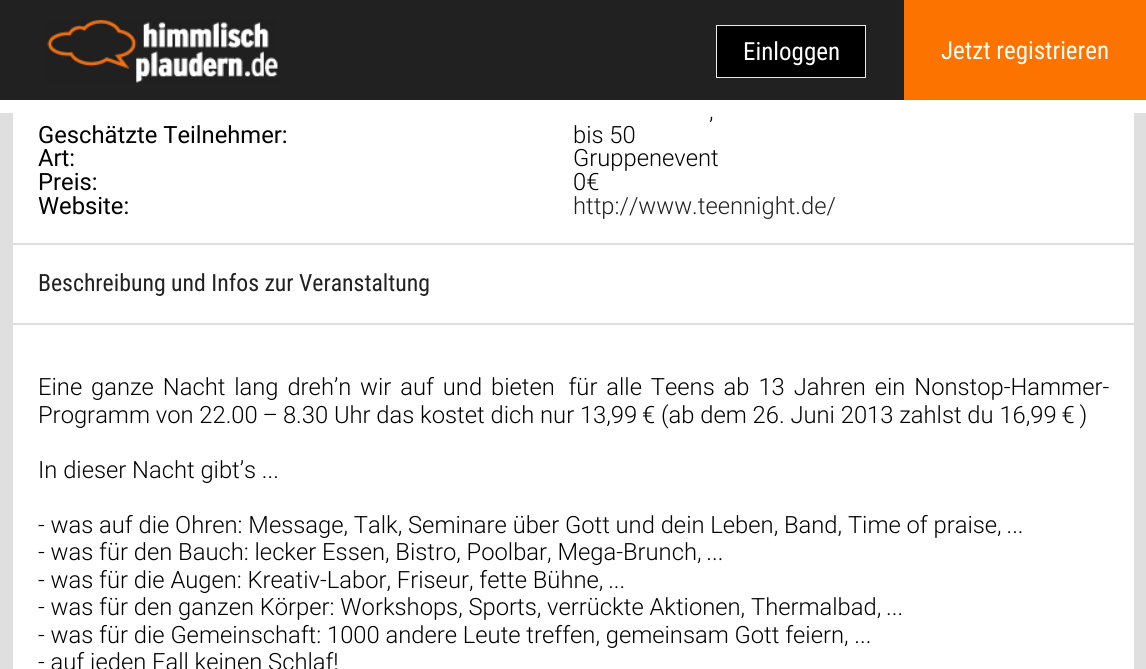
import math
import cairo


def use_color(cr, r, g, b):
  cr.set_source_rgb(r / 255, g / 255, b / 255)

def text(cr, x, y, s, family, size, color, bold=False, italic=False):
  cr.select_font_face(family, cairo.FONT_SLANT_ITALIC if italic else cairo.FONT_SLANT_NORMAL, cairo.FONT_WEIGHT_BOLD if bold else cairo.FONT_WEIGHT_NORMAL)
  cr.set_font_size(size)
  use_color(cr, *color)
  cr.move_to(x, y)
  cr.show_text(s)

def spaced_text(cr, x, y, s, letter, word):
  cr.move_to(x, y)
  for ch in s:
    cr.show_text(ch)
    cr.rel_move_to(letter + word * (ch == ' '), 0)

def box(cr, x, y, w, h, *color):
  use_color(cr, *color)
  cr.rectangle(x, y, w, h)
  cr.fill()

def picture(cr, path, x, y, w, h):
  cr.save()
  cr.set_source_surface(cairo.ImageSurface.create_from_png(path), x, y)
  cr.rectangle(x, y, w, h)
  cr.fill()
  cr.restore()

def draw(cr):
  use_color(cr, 223, 223, 223)
  cr.paint()
  box(cr, 0, 0, 904, 100, 33, 33, 33)
  box(cr, 0, 100, 1146, 13, 255, 255, 255)
  picture(cr, "img_01.png", 47, 19, 231, 64)
  use_color(cr, 0, 0, 0)
  cr.rectangle(716.5, 25.5, 149, 52)
  cr.fill_preserve()
  use_color(cr, 236, 236, 236)
  cr.set_line_width(1)
  cr.stroke()
  box(cr, 904, 0, 242, 100, 252, 115, 0)
  box(cr, 13, 113, 1121, 130, 255, 255, 255)
  box(cr, 13, 245, 1121, 78, 255, 255, 255)
  box(cr, 13, 325, 1121, 344, 255, 255, 255)
  text(cr, 743, 60, "Einloggen", "Roboto Condensed", 25, (255, 255, 255))
  text(cr, 941, 59, "Jetzt registrieren", "Roboto Condensed", 25, (255, 255, 255))
  text(cr, 709, 119, ",", "Roboto Light", 23.75, (0, 0, 0))
  text(cr, 38, 143, "Geschätzte Teilnehmer:", "Roboto", 23.75, (0, 0, 0))
  text(cr, 573, 143, "bis 50", "Roboto Light", 23.75, (0, 0, 0))
  text(cr, 38, 166, "Art:", "Roboto", 23.75, (0, 0, 0))
  text(cr, 573, 166, "Gruppenevent", "Roboto Light", 23.75, (0, 0, 0))
  text(cr, 38, 190, "Preis:", "Roboto", 23.75, (0, 0, 0))
  text(cr, 573, 190, "0€", "Roboto Light", 23.75, (0, 0, 0))
  text(cr, 38, 214, "Website:", "Roboto", 23.75, (0, 0, 0))
  text(cr, 573, 214, "http://www.teennight.de/", "Roboto Light", 23.75, (33, 33, 33))
  text(cr, 38, 291, "Beschreibung und Infos zur Veranstaltung", "Roboto Condensed", 23.75, (33, 33, 33))
  cr.select_font_face("Roboto Light")
  use_color(cr, 0, 0, 0)
  spaced_text(cr, 38, 395, "Eine ganze Nacht lang dreh’n wir auf und bieten  für alle Teens ab 13 Jahren ein Nonstop-Hammer-", 0, 3.1)
  text(cr, 38, 423, "Programm von 22.00 – 8.30 Uhr das kostet dich nur 13,99 € (ab dem 26. Juni 2013 zahlst du 16,99 € )", "Roboto Light", 23.75, (0, 0, 0))
  text(cr, 38, 478, "In dieser Nacht gibt’s ...", "Roboto Light", 23.75, (0, 0, 0))
  text(cr, 38, 533, "- was auf die Ohren: Message, Talk, Seminare über Gott und dein Leben, Band, Time of praise, ...", "Roboto Light", 23.75, (0, 0, 0))
  text(cr, 38, 560, "- was für den Bauch: lecker Essen, Bistro, Poolbar, Mega-Brunch, ...", "Roboto Light", 23.75, (0, 0, 0))
  text(cr, 38, 588, "- was für die Augen: Kreativ-Labor, Friseur, fette Bühne, ...", "Roboto Light", 23.75, (0, 0, 0))
  text(cr, 38, 615, "- was für den ganzen Körper: Workshops, Sports, verrückte Aktionen, Thermalbad, ...", "Roboto Light", 23.75, (0, 0, 0))
  text(cr, 38, 643, "- was für die Gemeinschaft: 1000 andere Leute treffen, gemeinsam Gott feiern, ...", "Roboto Light", 23.75, (0, 0, 0))
  text(cr, 38, 670, "- auf jeden Fall keinen Schlaf!", "Roboto Light", 23.75, (0, 0, 0))


surface = cairo.ImageSurface(cairo.FORMAT_RGB24, 1146, 669)
cr = cairo.Context(surface)
options = cairo.FontOptions()
options.set_hint_metrics(cairo.HINT_METRICS_OFF)
options.set_hint_style(cairo.HINT_STYLE_NONE)
cr.set_font_options(options)
cr.set_miter_limit(4)
draw(cr)
surface.write_to_png("out.png")
